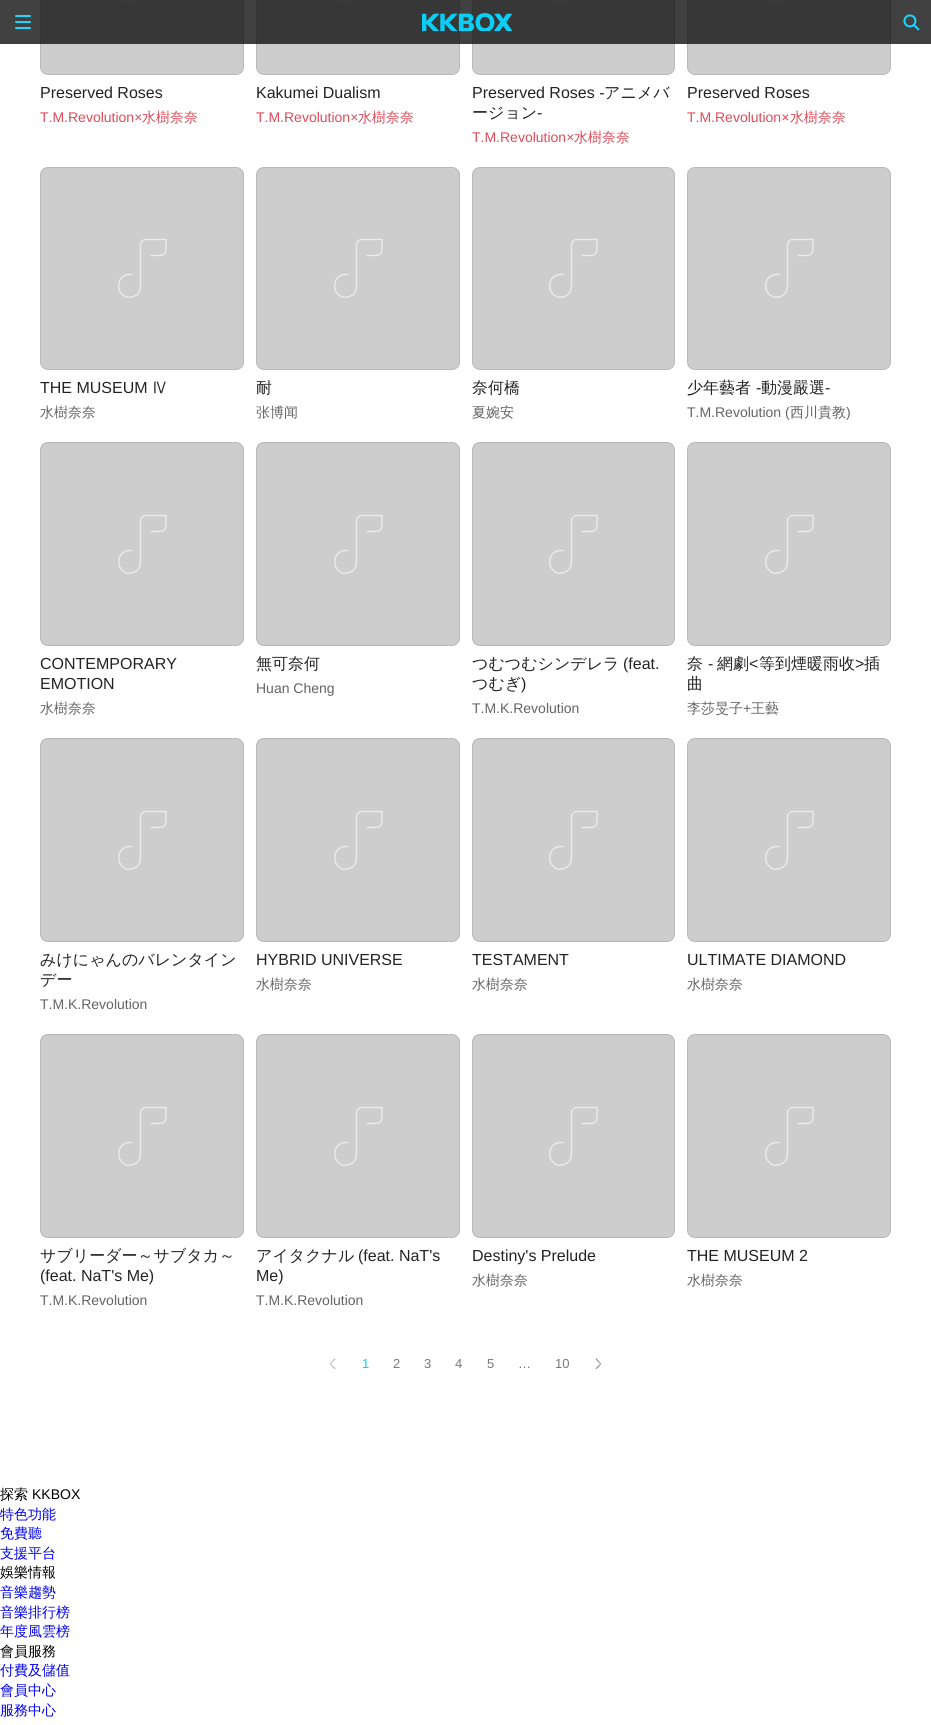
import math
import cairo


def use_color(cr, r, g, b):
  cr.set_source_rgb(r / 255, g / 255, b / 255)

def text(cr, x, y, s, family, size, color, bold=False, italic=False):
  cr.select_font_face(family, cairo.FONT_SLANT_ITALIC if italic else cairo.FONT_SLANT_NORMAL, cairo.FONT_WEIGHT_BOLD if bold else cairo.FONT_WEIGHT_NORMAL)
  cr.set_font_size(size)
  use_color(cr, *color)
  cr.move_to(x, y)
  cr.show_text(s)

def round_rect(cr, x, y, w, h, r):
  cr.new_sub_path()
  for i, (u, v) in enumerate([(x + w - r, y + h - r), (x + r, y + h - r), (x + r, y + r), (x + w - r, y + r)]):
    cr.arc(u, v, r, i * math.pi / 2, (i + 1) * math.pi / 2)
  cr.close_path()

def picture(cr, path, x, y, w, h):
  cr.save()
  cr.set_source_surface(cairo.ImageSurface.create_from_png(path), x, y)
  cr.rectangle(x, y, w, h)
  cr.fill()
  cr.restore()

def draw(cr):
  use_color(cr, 255, 255, 255)
  cr.paint()
  use_color(cr, 205, 205, 205)
  round_rect(cr, 40, -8, 204, 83, 8)
  cr.fill()
  cr.new_path()
  cr.move_to(132, -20.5)
  cr.curve_to(111.5, -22, 116.5, 8.5, 134.5, 1)
  cr.curve_to(140.5, -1.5, 140.5, -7.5, 140.5, -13)
  cr.line_to(140.5, -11)
  cr.line_to(140.5, -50)
  cr.curve_to(140.5, -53.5, 143.5, -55.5, 145.5, -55.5)
  cr.line_to(166, -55.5)
  cr.curve_to(166, -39, 167, -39.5, 151, -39.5)
  use_color(cr, 235, 235, 235)
  cr.set_line_width(1.4)
  cr.set_line_cap(cairo.LINE_CAP_ROUND)
  cr.set_line_join(cairo.LINE_JOIN_ROUND)
  cr.stroke()
  round_rect(cr, 40.5, -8.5, 203, 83, 7.5)
  cr.set_source_rgba(0, 0, 0, 0.1)
  cr.set_line_width(1)
  cr.set_line_cap(cairo.LINE_CAP_BUTT)
  cr.set_line_join(cairo.LINE_JOIN_MITER)
  cr.stroke()
  use_color(cr, 205, 205, 205)
  round_rect(cr, 256, -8, 204, 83, 8)
  cr.fill()
  cr.new_path()
  cr.move_to(348, -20.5)
  cr.curve_to(327.5, -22, 332.5, 8.5, 350.5, 1)
  cr.curve_to(356.5, -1.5, 356.5, -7.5, 356.5, -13)
  cr.line_to(356.5, -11)
  cr.line_to(356.5, -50)
  cr.curve_to(356.5, -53.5, 359.5, -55.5, 361.5, -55.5)
  cr.line_to(382, -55.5)
  cr.curve_to(382, -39, 383, -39.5, 367, -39.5)
  use_color(cr, 235, 235, 235)
  cr.set_line_width(1.4)
  cr.set_line_cap(cairo.LINE_CAP_ROUND)
  cr.set_line_join(cairo.LINE_JOIN_ROUND)
  cr.stroke()
  round_rect(cr, 256.5, -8.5, 203, 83, 7.5)
  cr.set_source_rgba(0, 0, 0, 0.1)
  cr.set_line_width(1)
  cr.set_line_cap(cairo.LINE_CAP_BUTT)
  cr.set_line_join(cairo.LINE_JOIN_MITER)
  cr.stroke()
  use_color(cr, 205, 205, 205)
  round_rect(cr, 472, -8, 203, 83, 8)
  cr.fill()
  cr.new_path()
  cr.move_to(563, -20.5)
  cr.curve_to(542.5, -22, 547.5, 8.5, 565.5, 1)
  cr.curve_to(571.5, -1.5, 571.5, -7.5, 571.5, -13)
  cr.line_to(571.5, -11)
  cr.line_to(571.5, -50)
  cr.curve_to(571.5, -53.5, 574.5, -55.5, 576.5, -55.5)
  cr.line_to(597, -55.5)
  cr.curve_to(597, -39, 598, -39.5, 582, -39.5)
  use_color(cr, 235, 235, 235)
  cr.set_line_width(1.4)
  cr.set_line_cap(cairo.LINE_CAP_ROUND)
  cr.set_line_join(cairo.LINE_JOIN_ROUND)
  cr.stroke()
  round_rect(cr, 472.5, -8.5, 202, 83, 7.5)
  cr.set_source_rgba(0, 0, 0, 0.1)
  cr.set_line_width(1)
  cr.set_line_cap(cairo.LINE_CAP_BUTT)
  cr.set_line_join(cairo.LINE_JOIN_MITER)
  cr.stroke()
  use_color(cr, 205, 205, 205)
  round_rect(cr, 687, -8, 204, 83, 8)
  cr.fill()
  cr.new_path()
  cr.move_to(779, -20.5)
  cr.curve_to(758.5, -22, 763.5, 8.5, 781.5, 1)
  cr.curve_to(787.5, -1.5, 787.5, -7.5, 787.5, -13)
  cr.line_to(787.5, -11)
  cr.line_to(787.5, -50)
  cr.curve_to(787.5, -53.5, 790.5, -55.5, 792.5, -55.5)
  cr.line_to(813, -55.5)
  cr.curve_to(813, -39, 814, -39.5, 798, -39.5)
  use_color(cr, 235, 235, 235)
  cr.set_line_width(1.4)
  cr.set_line_cap(cairo.LINE_CAP_ROUND)
  cr.set_line_join(cairo.LINE_JOIN_ROUND)
  cr.stroke()
  round_rect(cr, 687.5, -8.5, 203, 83, 7.5)
  cr.set_source_rgba(0, 0, 0, 0.1)
  cr.set_line_width(1)
  cr.set_line_cap(cairo.LINE_CAP_BUTT)
  cr.set_line_join(cairo.LINE_JOIN_MITER)
  cr.stroke()
  cr.set_source_rgba(0.071, 0.071, 0.071, 0.8)
  cr.rectangle(0, 0, 931, 44)
  cr.fill()
  use_color(cr, 29, 214, 255)
  round_rect(cr, 15, 15, 16, 2, 1)
  cr.fill()
  round_rect(cr, 15, 21, 16, 2, 1)
  cr.fill()
  round_rect(cr, 15, 27, 16, 2, 1)
  cr.fill()
  picture(cr, "img_01.png", 422, 13, 91, 18)
  picture(cr, "img_02.png", 903, 14, 17, 17)
  use_color(cr, 205, 205, 205)
  round_rect(cr, 40, 167, 204, 203, 8)
  cr.fill()
  cr.new_path()
  cr.move_to(132, 274.5)
  cr.curve_to(111.5, 273, 116.5, 303.5, 134.5, 296)
  cr.curve_to(140.5, 293.5, 140.5, 287.5, 140.5, 282)
  cr.line_to(140.5, 284)
  cr.line_to(140.5, 245)
  cr.curve_to(140.5, 241.5, 143.5, 239.5, 145.5, 239.5)
  cr.line_to(166, 239.5)
  cr.curve_to(166, 256, 167, 255.5, 151, 255.5)
  use_color(cr, 235, 235, 235)
  cr.set_line_width(1.4)
  cr.set_line_cap(cairo.LINE_CAP_ROUND)
  cr.set_line_join(cairo.LINE_JOIN_ROUND)
  cr.stroke()
  round_rect(cr, 40.5, 167.5, 203, 202, 7.5)
  cr.set_source_rgba(0, 0, 0, 0.1)
  cr.set_line_width(1)
  cr.set_line_cap(cairo.LINE_CAP_BUTT)
  cr.set_line_join(cairo.LINE_JOIN_MITER)
  cr.stroke()
  use_color(cr, 205, 205, 205)
  round_rect(cr, 256, 167, 204, 203, 8)
  cr.fill()
  cr.new_path()
  cr.move_to(348, 274.5)
  cr.curve_to(327.5, 273, 332.5, 303.5, 350.5, 296)
  cr.curve_to(356.5, 293.5, 356.5, 287.5, 356.5, 282)
  cr.line_to(356.5, 284)
  cr.line_to(356.5, 245)
  cr.curve_to(356.5, 241.5, 359.5, 239.5, 361.5, 239.5)
  cr.line_to(382, 239.5)
  cr.curve_to(382, 256, 383, 255.5, 367, 255.5)
  use_color(cr, 235, 235, 235)
  cr.set_line_width(1.4)
  cr.set_line_cap(cairo.LINE_CAP_ROUND)
  cr.set_line_join(cairo.LINE_JOIN_ROUND)
  cr.stroke()
  round_rect(cr, 256.5, 167.5, 203, 202, 7.5)
  cr.set_source_rgba(0, 0, 0, 0.1)
  cr.set_line_width(1)
  cr.set_line_cap(cairo.LINE_CAP_BUTT)
  cr.set_line_join(cairo.LINE_JOIN_MITER)
  cr.stroke()
  use_color(cr, 205, 205, 205)
  round_rect(cr, 472, 167, 203, 203, 8)
  cr.fill()
  cr.new_path()
  cr.move_to(563, 274.5)
  cr.curve_to(542.5, 273, 547.5, 303.5, 565.5, 296)
  cr.curve_to(571.5, 293.5, 571.5, 287.5, 571.5, 282)
  cr.line_to(571.5, 284)
  cr.line_to(571.5, 245)
  cr.curve_to(571.5, 241.5, 574.5, 239.5, 576.5, 239.5)
  cr.line_to(597, 239.5)
  cr.curve_to(597, 256, 598, 255.5, 582, 255.5)
  use_color(cr, 235, 235, 235)
  cr.set_line_width(1.4)
  cr.set_line_cap(cairo.LINE_CAP_ROUND)
  cr.set_line_join(cairo.LINE_JOIN_ROUND)
  cr.stroke()
  round_rect(cr, 472.5, 167.5, 202, 202, 7.5)
  cr.set_source_rgba(0, 0, 0, 0.1)
  cr.set_line_width(1)
  cr.set_line_cap(cairo.LINE_CAP_BUTT)
  cr.set_line_join(cairo.LINE_JOIN_MITER)
  cr.stroke()
  use_color(cr, 205, 205, 205)
  round_rect(cr, 687, 167, 204, 203, 8)
  cr.fill()
  cr.new_path()
  cr.move_to(779, 274.5)
  cr.curve_to(758.5, 273, 763.5, 303.5, 781.5, 296)
  cr.curve_to(787.5, 293.5, 787.5, 287.5, 787.5, 282)
  cr.line_to(787.5, 284)
  cr.line_to(787.5, 245)
  cr.curve_to(787.5, 241.5, 790.5, 239.5, 792.5, 239.5)
  cr.line_to(813, 239.5)
  cr.curve_to(813, 256, 814, 255.5, 798, 255.5)
  use_color(cr, 235, 235, 235)
  cr.set_line_width(1.4)
  cr.set_line_cap(cairo.LINE_CAP_ROUND)
  cr.set_line_join(cairo.LINE_JOIN_ROUND)
  cr.stroke()
  round_rect(cr, 687.5, 167.5, 203, 202, 7.5)
  cr.set_source_rgba(0, 0, 0, 0.1)
  cr.set_line_width(1)
  cr.set_line_cap(cairo.LINE_CAP_BUTT)
  cr.set_line_join(cairo.LINE_JOIN_MITER)
  cr.stroke()
  use_color(cr, 205, 205, 205)
  round_rect(cr, 40, 442, 204, 204, 8)
  cr.fill()
  cr.new_path()
  cr.move_to(132, 550.5)
  cr.curve_to(111.5, 549, 116.5, 579.5, 134.5, 572)
  cr.curve_to(140.5, 569.5, 140.5, 563.5, 140.5, 558)
  cr.line_to(140.5, 560)
  cr.line_to(140.5, 521)
  cr.curve_to(140.5, 517.5, 143.5, 515.5, 145.5, 515.5)
  cr.line_to(166, 515.5)
  cr.curve_to(166, 532, 167, 531.5, 151, 531.5)
  use_color(cr, 235, 235, 235)
  cr.set_line_width(1.4)
  cr.set_line_cap(cairo.LINE_CAP_ROUND)
  cr.set_line_join(cairo.LINE_JOIN_ROUND)
  cr.stroke()
  round_rect(cr, 40.5, 442.5, 203, 203, 7.5)
  cr.set_source_rgba(0, 0, 0, 0.1)
  cr.set_line_width(1)
  cr.set_line_cap(cairo.LINE_CAP_BUTT)
  cr.set_line_join(cairo.LINE_JOIN_MITER)
  cr.stroke()
  use_color(cr, 205, 205, 205)
  round_rect(cr, 256, 442, 204, 204, 8)
  cr.fill()
  cr.new_path()
  cr.move_to(348, 550.5)
  cr.curve_to(327.5, 549, 332.5, 579.5, 350.5, 572)
  cr.curve_to(356.5, 569.5, 356.5, 563.5, 356.5, 558)
  cr.line_to(356.5, 560)
  cr.line_to(356.5, 521)
  cr.curve_to(356.5, 517.5, 359.5, 515.5, 361.5, 515.5)
  cr.line_to(382, 515.5)
  cr.curve_to(382, 532, 383, 531.5, 367, 531.5)
  use_color(cr, 235, 235, 235)
  cr.set_line_width(1.4)
  cr.set_line_cap(cairo.LINE_CAP_ROUND)
  cr.set_line_join(cairo.LINE_JOIN_ROUND)
  cr.stroke()
  round_rect(cr, 256.5, 442.5, 203, 203, 7.5)
  cr.set_source_rgba(0, 0, 0, 0.1)
  cr.set_line_width(1)
  cr.set_line_cap(cairo.LINE_CAP_BUTT)
  cr.set_line_join(cairo.LINE_JOIN_MITER)
  cr.stroke()
  use_color(cr, 205, 205, 205)
  round_rect(cr, 472, 442, 203, 204, 8)
  cr.fill()
  cr.new_path()
  cr.move_to(563, 550.5)
  cr.curve_to(542.5, 549, 547.5, 579.5, 565.5, 572)
  cr.curve_to(571.5, 569.5, 571.5, 563.5, 571.5, 558)
  cr.line_to(571.5, 560)
  cr.line_to(571.5, 521)
  cr.curve_to(571.5, 517.5, 574.5, 515.5, 576.5, 515.5)
  cr.line_to(597, 515.5)
  cr.curve_to(597, 532, 598, 531.5, 582, 531.5)
  use_color(cr, 235, 235, 235)
  cr.set_line_width(1.4)
  cr.set_line_cap(cairo.LINE_CAP_ROUND)
  cr.set_line_join(cairo.LINE_JOIN_ROUND)
  cr.stroke()
  round_rect(cr, 472.5, 442.5, 202, 203, 7.5)
  cr.set_source_rgba(0, 0, 0, 0.1)
  cr.set_line_width(1)
  cr.set_line_cap(cairo.LINE_CAP_BUTT)
  cr.set_line_join(cairo.LINE_JOIN_MITER)
  cr.stroke()
  use_color(cr, 205, 205, 205)
  round_rect(cr, 687, 442, 204, 204, 8)
  cr.fill()
  cr.new_path()
  cr.move_to(779, 550.5)
  cr.curve_to(758.5, 549, 763.5, 579.5, 781.5, 572)
  cr.curve_to(787.5, 569.5, 787.5, 563.5, 787.5, 558)
  cr.line_to(787.5, 560)
  cr.line_to(787.5, 521)
  cr.curve_to(787.5, 517.5, 790.5, 515.5, 792.5, 515.5)
  cr.line_to(813, 515.5)
  cr.curve_to(813, 532, 814, 531.5, 798, 531.5)
  use_color(cr, 235, 235, 235)
  cr.set_line_width(1.4)
  cr.set_line_cap(cairo.LINE_CAP_ROUND)
  cr.set_line_join(cairo.LINE_JOIN_ROUND)
  cr.stroke()
  round_rect(cr, 687.5, 442.5, 203, 203, 7.5)
  cr.set_source_rgba(0, 0, 0, 0.1)
  cr.set_line_width(1)
  cr.set_line_cap(cairo.LINE_CAP_BUTT)
  cr.set_line_join(cairo.LINE_JOIN_MITER)
  cr.stroke()
  use_color(cr, 205, 205, 205)
  round_rect(cr, 40, 738, 204, 204, 8)
  cr.fill()
  cr.new_path()
  cr.move_to(132, 846.5)
  cr.curve_to(111.5, 845, 116.5, 875.5, 134.5, 868)
  cr.curve_to(140.5, 865.5, 140.5, 859.5, 140.5, 854)
  cr.line_to(140.5, 856)
  cr.line_to(140.5, 817)
  cr.curve_to(140.5, 813.5, 143.5, 811.5, 145.5, 811.5)
  cr.line_to(166, 811.5)
  cr.curve_to(166, 828, 167, 827.5, 151, 827.5)
  use_color(cr, 235, 235, 235)
  cr.set_line_width(1.4)
  cr.set_line_cap(cairo.LINE_CAP_ROUND)
  cr.set_line_join(cairo.LINE_JOIN_ROUND)
  cr.stroke()
  round_rect(cr, 40.5, 738.5, 203, 203, 7.5)
  cr.set_source_rgba(0, 0, 0, 0.1)
  cr.set_line_width(1)
  cr.set_line_cap(cairo.LINE_CAP_BUTT)
  cr.set_line_join(cairo.LINE_JOIN_MITER)
  cr.stroke()
  use_color(cr, 205, 205, 205)
  round_rect(cr, 256, 738, 204, 204, 8)
  cr.fill()
  cr.new_path()
  cr.move_to(348, 846.5)
  cr.curve_to(327.5, 845, 332.5, 875.5, 350.5, 868)
  cr.curve_to(356.5, 865.5, 356.5, 859.5, 356.5, 854)
  cr.line_to(356.5, 856)
  cr.line_to(356.5, 817)
  cr.curve_to(356.5, 813.5, 359.5, 811.5, 361.5, 811.5)
  cr.line_to(382, 811.5)
  cr.curve_to(382, 828, 383, 827.5, 367, 827.5)
  use_color(cr, 235, 235, 235)
  cr.set_line_width(1.4)
  cr.set_line_cap(cairo.LINE_CAP_ROUND)
  cr.set_line_join(cairo.LINE_JOIN_ROUND)
  cr.stroke()
  round_rect(cr, 256.5, 738.5, 203, 203, 7.5)
  cr.set_source_rgba(0, 0, 0, 0.1)
  cr.set_line_width(1)
  cr.set_line_cap(cairo.LINE_CAP_BUTT)
  cr.set_line_join(cairo.LINE_JOIN_MITER)
  cr.stroke()
  use_color(cr, 205, 205, 205)
  round_rect(cr, 472, 738, 203, 204, 8)
  cr.fill()
  cr.new_path()
  cr.move_to(563, 846.5)
  cr.curve_to(542.5, 845, 547.5, 875.5, 565.5, 868)
  cr.curve_to(571.5, 865.5, 571.5, 859.5, 571.5, 854)
  cr.line_to(571.5, 856)
  cr.line_to(571.5, 817)
  cr.curve_to(571.5, 813.5, 574.5, 811.5, 576.5, 811.5)
  cr.line_to(597, 811.5)
  cr.curve_to(597, 828, 598, 827.5, 582, 827.5)
  use_color(cr, 235, 235, 235)
  cr.set_line_width(1.4)
  cr.set_line_cap(cairo.LINE_CAP_ROUND)
  cr.set_line_join(cairo.LINE_JOIN_ROUND)
  cr.stroke()
  round_rect(cr, 472.5, 738.5, 202, 203, 7.5)
  cr.set_source_rgba(0, 0, 0, 0.1)
  cr.set_line_width(1)
  cr.set_line_cap(cairo.LINE_CAP_BUTT)
  cr.set_line_join(cairo.LINE_JOIN_MITER)
  cr.stroke()
  use_color(cr, 205, 205, 205)
  round_rect(cr, 687, 738, 204, 204, 8)
  cr.fill()
  cr.new_path()
  cr.move_to(779, 846.5)
  cr.curve_to(758.5, 845, 763.5, 875.5, 781.5, 868)
  cr.curve_to(787.5, 865.5, 787.5, 859.5, 787.5, 854)
  cr.line_to(787.5, 856)
  cr.line_to(787.5, 817)
  cr.curve_to(787.5, 813.5, 790.5, 811.5, 792.5, 811.5)
  cr.line_to(813, 811.5)
  cr.curve_to(813, 828, 814, 827.5, 798, 827.5)
  use_color(cr, 235, 235, 235)
  cr.set_line_width(1.4)
  cr.set_line_cap(cairo.LINE_CAP_ROUND)
  cr.set_line_join(cairo.LINE_JOIN_ROUND)
  cr.stroke()
  round_rect(cr, 687.5, 738.5, 203, 203, 7.5)
  cr.set_source_rgba(0, 0, 0, 0.1)
  cr.set_line_width(1)
  cr.set_line_cap(cairo.LINE_CAP_BUTT)
  cr.set_line_join(cairo.LINE_JOIN_MITER)
  cr.stroke()
  use_color(cr, 205, 205, 205)
  round_rect(cr, 40, 1034, 204, 204, 8)
  cr.fill()
  cr.new_path()
  cr.move_to(132, 1142.5)
  cr.curve_to(111.5, 1141, 116.5, 1171.5, 134.5, 1164)
  cr.curve_to(140.5, 1161.5, 140.5, 1155.5, 140.5, 1150)
  cr.line_to(140.5, 1152)
  cr.line_to(140.5, 1113)
  cr.curve_to(140.5, 1109.5, 143.5, 1107.5, 145.5, 1107.5)
  cr.line_to(166, 1107.5)
  cr.curve_to(166, 1124, 167, 1123.5, 151, 1123.5)
  use_color(cr, 235, 235, 235)
  cr.set_line_width(1.4)
  cr.set_line_cap(cairo.LINE_CAP_ROUND)
  cr.set_line_join(cairo.LINE_JOIN_ROUND)
  cr.stroke()
  round_rect(cr, 40.5, 1034.5, 203, 203, 7.5)
  cr.set_source_rgba(0, 0, 0, 0.1)
  cr.set_line_width(1)
  cr.set_line_cap(cairo.LINE_CAP_BUTT)
  cr.set_line_join(cairo.LINE_JOIN_MITER)
  cr.stroke()
  use_color(cr, 205, 205, 205)
  round_rect(cr, 256, 1034, 204, 204, 8)
  cr.fill()
  cr.new_path()
  cr.move_to(348, 1142.5)
  cr.curve_to(327.5, 1141, 332.5, 1171.5, 350.5, 1164)
  cr.curve_to(356.5, 1161.5, 356.5, 1155.5, 356.5, 1150)
  cr.line_to(356.5, 1152)
  cr.line_to(356.5, 1113)
  cr.curve_to(356.5, 1109.5, 359.5, 1107.5, 361.5, 1107.5)
  cr.line_to(382, 1107.5)
  cr.curve_to(382, 1124, 383, 1123.5, 367, 1123.5)
  use_color(cr, 235, 235, 235)
  cr.set_line_width(1.4)
  cr.set_line_cap(cairo.LINE_CAP_ROUND)
  cr.set_line_join(cairo.LINE_JOIN_ROUND)
  cr.stroke()
  round_rect(cr, 256.5, 1034.5, 203, 203, 7.5)
  cr.set_source_rgba(0, 0, 0, 0.1)
  cr.set_line_width(1)
  cr.set_line_cap(cairo.LINE_CAP_BUTT)
  cr.set_line_join(cairo.LINE_JOIN_MITER)
  cr.stroke()
  use_color(cr, 205, 205, 205)
  round_rect(cr, 472, 1034, 203, 204, 8)
  cr.fill()
  cr.new_path()
  cr.move_to(563, 1142.5)
  cr.curve_to(542.5, 1141, 547.5, 1171.5, 565.5, 1164)
  cr.curve_to(571.5, 1161.5, 571.5, 1155.5, 571.5, 1150)
  cr.line_to(571.5, 1152)
  cr.line_to(571.5, 1113)
  cr.curve_to(571.5, 1109.5, 574.5, 1107.5, 576.5, 1107.5)
  cr.line_to(597, 1107.5)
  cr.curve_to(597, 1124, 598, 1123.5, 582, 1123.5)
  use_color(cr, 235, 235, 235)
  cr.set_line_width(1.4)
  cr.set_line_cap(cairo.LINE_CAP_ROUND)
  cr.set_line_join(cairo.LINE_JOIN_ROUND)
  cr.stroke()
  round_rect(cr, 472.5, 1034.5, 202, 203, 7.5)
  cr.set_source_rgba(0, 0, 0, 0.1)
  cr.set_line_width(1)
  cr.set_line_cap(cairo.LINE_CAP_BUTT)
  cr.set_line_join(cairo.LINE_JOIN_MITER)
  cr.stroke()
  use_color(cr, 205, 205, 205)
  round_rect(cr, 687, 1034, 204, 204, 8)
  cr.fill()
  cr.new_path()
  cr.move_to(779, 1142.5)
  cr.curve_to(758.5, 1141, 763.5, 1171.5, 781.5, 1164)
  cr.curve_to(787.5, 1161.5, 787.5, 1155.5, 787.5, 1150)
  cr.line_to(787.5, 1152)
  cr.line_to(787.5, 1113)
  cr.curve_to(787.5, 1109.5, 790.5, 1107.5, 792.5, 1107.5)
  cr.line_to(813, 1107.5)
  cr.curve_to(813, 1124, 814, 1123.5, 798, 1123.5)
  use_color(cr, 235, 235, 235)
  cr.set_line_width(1.4)
  cr.set_line_cap(cairo.LINE_CAP_ROUND)
  cr.set_line_join(cairo.LINE_JOIN_ROUND)
  cr.stroke()
  round_rect(cr, 687.5, 1034.5, 203, 203, 7.5)
  cr.set_source_rgba(0, 0, 0, 0.1)
  cr.set_line_width(1)
  cr.set_line_cap(cairo.LINE_CAP_BUTT)
  cr.set_line_join(cairo.LINE_JOIN_MITER)
  cr.stroke()
  use_color(cr, 174, 174, 174)
  cr.new_path()
  cr.move_to(330.5, 1363.5)
  cr.line_to(335.5, 1368.5)
  cr.line_to(334.5, 1369)
  cr.line_to(330, 1364)
  cr.close_path()
  cr.fill()
  cr.new_path()
  cr.move_to(334.5, 1358.5)
  cr.line_to(335.5, 1359)
  cr.line_to(330.5, 1364)
  cr.line_to(330, 1363.5)
  cr.close_path()
  cr.fill()
  use_color(cr, 120, 120, 120)
  cr.new_path()
  cr.move_to(600.5, 1364)
  cr.line_to(595.5, 1359)
  cr.line_to(596.5, 1358.5)
  cr.line_to(601, 1363.5)
  cr.close_path()
  cr.fill()
  cr.new_path()
  cr.move_to(596.5, 1369)
  cr.line_to(595.5, 1368.5)
  cr.line_to(600.5, 1363.5)
  cr.line_to(601, 1364)
  cr.close_path()
  cr.fill()
  text(cr, 40, 98, "Preserved Roses", "Liberation Sans", 16, (35, 35, 35))
  text(cr, 40, 122, "T.M.Revolution×", "Liberation Sans", 14, (225, 74, 87))
  text(cr, 142, 122, "水樹奈奈", "WenQuanYi Zen Hei Medium", 14, (225, 74, 87))
  text(cr, 256, 98, "Kakumei Dualism", "Liberation Sans", 16, (35, 35, 35))
  text(cr, 256, 122, "T.M.Revolution×", "Liberation Sans", 14, (225, 74, 87))
  text(cr, 358, 122, "水樹奈奈", "WenQuanYi Zen Hei Medium", 14, (225, 74, 87))
  text(cr, 472, 98, "Preserved Roses -", "Liberation Sans", 16, (35, 35, 35))
  text(cr, 604, 98, "アニメバ", "WenQuanYi Zen Hei Medium", 16, (35, 35, 35))
  text(cr, 472, 118, "ージョン", "WenQuanYi Zen Hei Medium", 16, (35, 35, 35))
  text(cr, 537, 118, "-", "Liberation Sans", 16, (35, 35, 35))
  text(cr, 472, 142, "T.M.Revolution×", "Liberation Sans", 14, (225, 74, 87))
  text(cr, 574, 142, "水樹奈奈", "WenQuanYi Zen Hei Medium", 14, (225, 74, 87))
  text(cr, 687, 98, "Preserved Roses", "Liberation Sans", 16, (35, 35, 35))
  text(cr, 687, 122, "T.M.Revolution×", "Liberation Sans", 14, (225, 74, 87))
  text(cr, 790, 122, "水樹奈奈", "WenQuanYi Zen Hei Medium", 14, (225, 74, 87))
  text(cr, 40, 393, "THE MUSEUM", "Liberation Sans", 16, (35, 35, 35))
  text(cr, 152, 393, "Ⅳ", "WenQuanYi Zen Hei Medium", 16, (35, 35, 35))
  text(cr, 40, 417, "水樹奈奈", "WenQuanYi Zen Hei Medium", 14, (100, 100, 100))
  text(cr, 256, 393, "耐", "WenQuanYi Zen Hei Medium", 16, (35, 35, 35))
  text(cr, 256, 417, "张博闻", "WenQuanYi Zen Hei Medium", 14, (100, 100, 100))
  text(cr, 472, 393, "奈何橋", "WenQuanYi Zen Hei Medium", 16, (35, 35, 35))
  text(cr, 472, 417, "夏婉安", "WenQuanYi Zen Hei Medium", 14, (100, 100, 100))
  text(cr, 687, 393, "少年藝者", "WenQuanYi Zen Hei Medium", 16, (35, 35, 35))
  text(cr, 756, 393, "-", "Liberation Sans", 16, (35, 35, 35))
  text(cr, 761, 393, "動漫嚴選", "WenQuanYi Zen Hei Medium", 16, (35, 35, 35))
  text(cr, 825, 393, "-", "Liberation Sans", 16, (35, 35, 35))
  text(cr, 687, 417, "T.M.Revolution (", "Liberation Sans", 14, (100, 100, 100))
  text(cr, 790, 417, "西川貴教", "WenQuanYi Zen Hei Medium", 14, (100, 100, 100))
  text(cr, 846, 417, ")", "Liberation Sans", 14, (100, 100, 100))
  text(cr, 40, 669, "CONTEMPORARY", "Liberation Sans", 16, (35, 35, 35))
  text(cr, 40, 689, "EMOTION", "Liberation Sans", 16, (35, 35, 35))
  text(cr, 40, 713, "水樹奈奈", "WenQuanYi Zen Hei Medium", 14, (100, 100, 100))
  text(cr, 256, 669, "無可奈何", "WenQuanYi Zen Hei Medium", 16, (35, 35, 35))
  text(cr, 256, 693, "Huan Cheng", "Liberation Sans", 14, (100, 100, 100))
  text(cr, 472, 669, "つむつむシンデレラ", "WenQuanYi Zen Hei Medium", 16, (35, 35, 35))
  text(cr, 623, 669, "(feat.", "Liberation Sans", 16, (35, 35, 35))
  text(cr, 472, 689, "つむぎ", "WenQuanYi Zen Hei Medium", 16, (35, 35, 35))
  text(cr, 521, 689, ")", "Liberation Sans", 16, (35, 35, 35))
  text(cr, 472, 713, "T.M.K.Revolution", "Liberation Sans", 14, (100, 100, 100))
  text(cr, 687, 669, "奈", "WenQuanYi Zen Hei Medium", 16, (35, 35, 35))
  text(cr, 708, 669, "-", "Liberation Sans", 16, (35, 35, 35))
  text(cr, 717, 669, "網劇", "WenQuanYi Zen Hei Medium", 16, (35, 35, 35))
  text(cr, 749, 669, "<", "Liberation Sans", 16, (35, 35, 35))
  text(cr, 759, 669, "等到煙暖雨收", "WenQuanYi Zen Hei Medium", 16, (35, 35, 35))
  text(cr, 855, 669, ">", "Liberation Sans", 16, (35, 35, 35))
  text(cr, 864, 669, "插", "WenQuanYi Zen Hei Medium", 16, (35, 35, 35))
  text(cr, 687, 689, "曲", "WenQuanYi Zen Hei Medium", 16, (35, 35, 35))
  text(cr, 687, 713, "李莎旻子", "WenQuanYi Zen Hei Medium", 14, (100, 100, 100))
  text(cr, 743, 713, "+", "Liberation Sans", 14, (100, 100, 100))
  text(cr, 751, 713, "王藝", "WenQuanYi Zen Hei Medium", 14, (100, 100, 100))
  text(cr, 40, 965, "みけにゃんのバレンタイン", "WenQuanYi Zen Hei Medium", 16, (35, 35, 35))
  text(cr, 40, 985, "デー", "WenQuanYi Zen Hei Medium", 16, (35, 35, 35))
  text(cr, 40, 1009, "T.M.K.Revolution", "Liberation Sans", 14, (100, 100, 100))
  text(cr, 256, 965, "HYBRID UNIVERSE", "Liberation Sans", 16, (35, 35, 35))
  text(cr, 256, 989, "水樹奈奈", "WenQuanYi Zen Hei Medium", 14, (100, 100, 100))
  text(cr, 472, 965, "TESTAMENT", "Liberation Sans", 16, (35, 35, 35))
  text(cr, 472, 989, "水樹奈奈", "WenQuanYi Zen Hei Medium", 14, (100, 100, 100))
  text(cr, 687, 965, "ULTIMATE DIAMOND", "Liberation Sans", 16, (35, 35, 35))
  text(cr, 687, 989, "水樹奈奈", "WenQuanYi Zen Hei Medium", 14, (100, 100, 100))
  text(cr, 40, 1261, "サブリーダー～サブタカ～", "WenQuanYi Zen Hei Medium", 16, (35, 35, 35))
  text(cr, 40, 1281, "(feat. NaT's Me)", "Liberation Sans", 16, (35, 35, 35))
  text(cr, 40, 1305, "T.M.K.Revolution", "Liberation Sans", 14, (100, 100, 100))
  text(cr, 256, 1261, "アイタクナル", "WenQuanYi Zen Hei Medium", 16, (35, 35, 35))
  text(cr, 358, 1261, "(feat. NaT's", "Liberation Sans", 16, (35, 35, 35))
  text(cr, 256, 1281, "Me)", "Liberation Sans", 16, (35, 35, 35))
  text(cr, 256, 1305, "T.M.K.Revolution", "Liberation Sans", 14, (100, 100, 100))
  text(cr, 472, 1261, "Destiny's Prelude", "Liberation Sans", 16, (35, 35, 35))
  text(cr, 472, 1285, "水樹奈奈", "WenQuanYi Zen Hei Medium", 14, (100, 100, 100))
  text(cr, 687, 1261, "THE MUSEUM 2", "Liberation Sans", 16, (35, 35, 35))
  text(cr, 687, 1285, "水樹奈奈", "WenQuanYi Zen Hei Medium", 14, (100, 100, 100))
  text(cr, 362, 1368, "1", "Liberation Sans", 13, (9, 206, 246))
  text(cr, 393, 1368, "2", "Liberation Sans", 13, (120, 120, 120))
  text(cr, 424, 1368, "3", "Liberation Sans", 13, (120, 120, 120))
  text(cr, 455, 1368, "4", "Liberation Sans", 13, (120, 120, 120))
  text(cr, 487, 1368, "5", "Liberation Sans", 13, (120, 120, 120))
  text(cr, 518, 1368, "…", "Liberation Sans", 13, (120, 120, 120))
  text(cr, 555, 1368, "10", "Liberation Sans", 13, (120, 120, 120))
  text(cr, 0, 1499, "探索", "WenQuanYi Zen Hei Medium", 14, (0, 0, 0))
  text(cr, 32, 1499, "KKBOX", "Liberation Sans", 14, (0, 0, 0))
  text(cr, 0, 1519, "特色功能", "WenQuanYi Zen Hei Medium", 14, (0, 0, 238))
  text(cr, 0, 1538, "免費聽", "WenQuanYi Zen Hei Medium", 14, (0, 0, 238))
  text(cr, 0, 1558, "支援平台", "WenQuanYi Zen Hei Medium", 14, (0, 0, 238))
  text(cr, 0, 1577, "娛樂情報", "WenQuanYi Zen Hei Medium", 14, (0, 0, 0))
  text(cr, 0, 1597, "音樂趨勢", "WenQuanYi Zen Hei Medium", 14, (0, 0, 238))
  text(cr, 0, 1617, "音樂排行榜", "WenQuanYi Zen Hei Medium", 14, (0, 0, 238))
  text(cr, 0, 1636, "年度風雲榜", "WenQuanYi Zen Hei Medium", 14, (0, 0, 238))
  text(cr, 0, 1656, "會員服務", "WenQuanYi Zen Hei Medium", 14, (0, 0, 0))
  text(cr, 0, 1675, "付費及儲值", "WenQuanYi Zen Hei Medium", 14, (0, 0, 238))
  text(cr, 0, 1695, "會員中心", "WenQuanYi Zen Hei Medium", 14, (0, 0, 238))
  text(cr, 0, 1715, "服務中心", "WenQuanYi Zen Hei Medium", 14, (0, 0, 238))


surface = cairo.ImageSurface(cairo.FORMAT_RGB24, 931, 1725)
cr = cairo.Context(surface)
options = cairo.FontOptions()
options.set_hint_metrics(cairo.HINT_METRICS_OFF)
options.set_hint_style(cairo.HINT_STYLE_NONE)
cr.set_font_options(options)
cr.set_miter_limit(4)
draw(cr)
surface.write_to_png("out.png")
